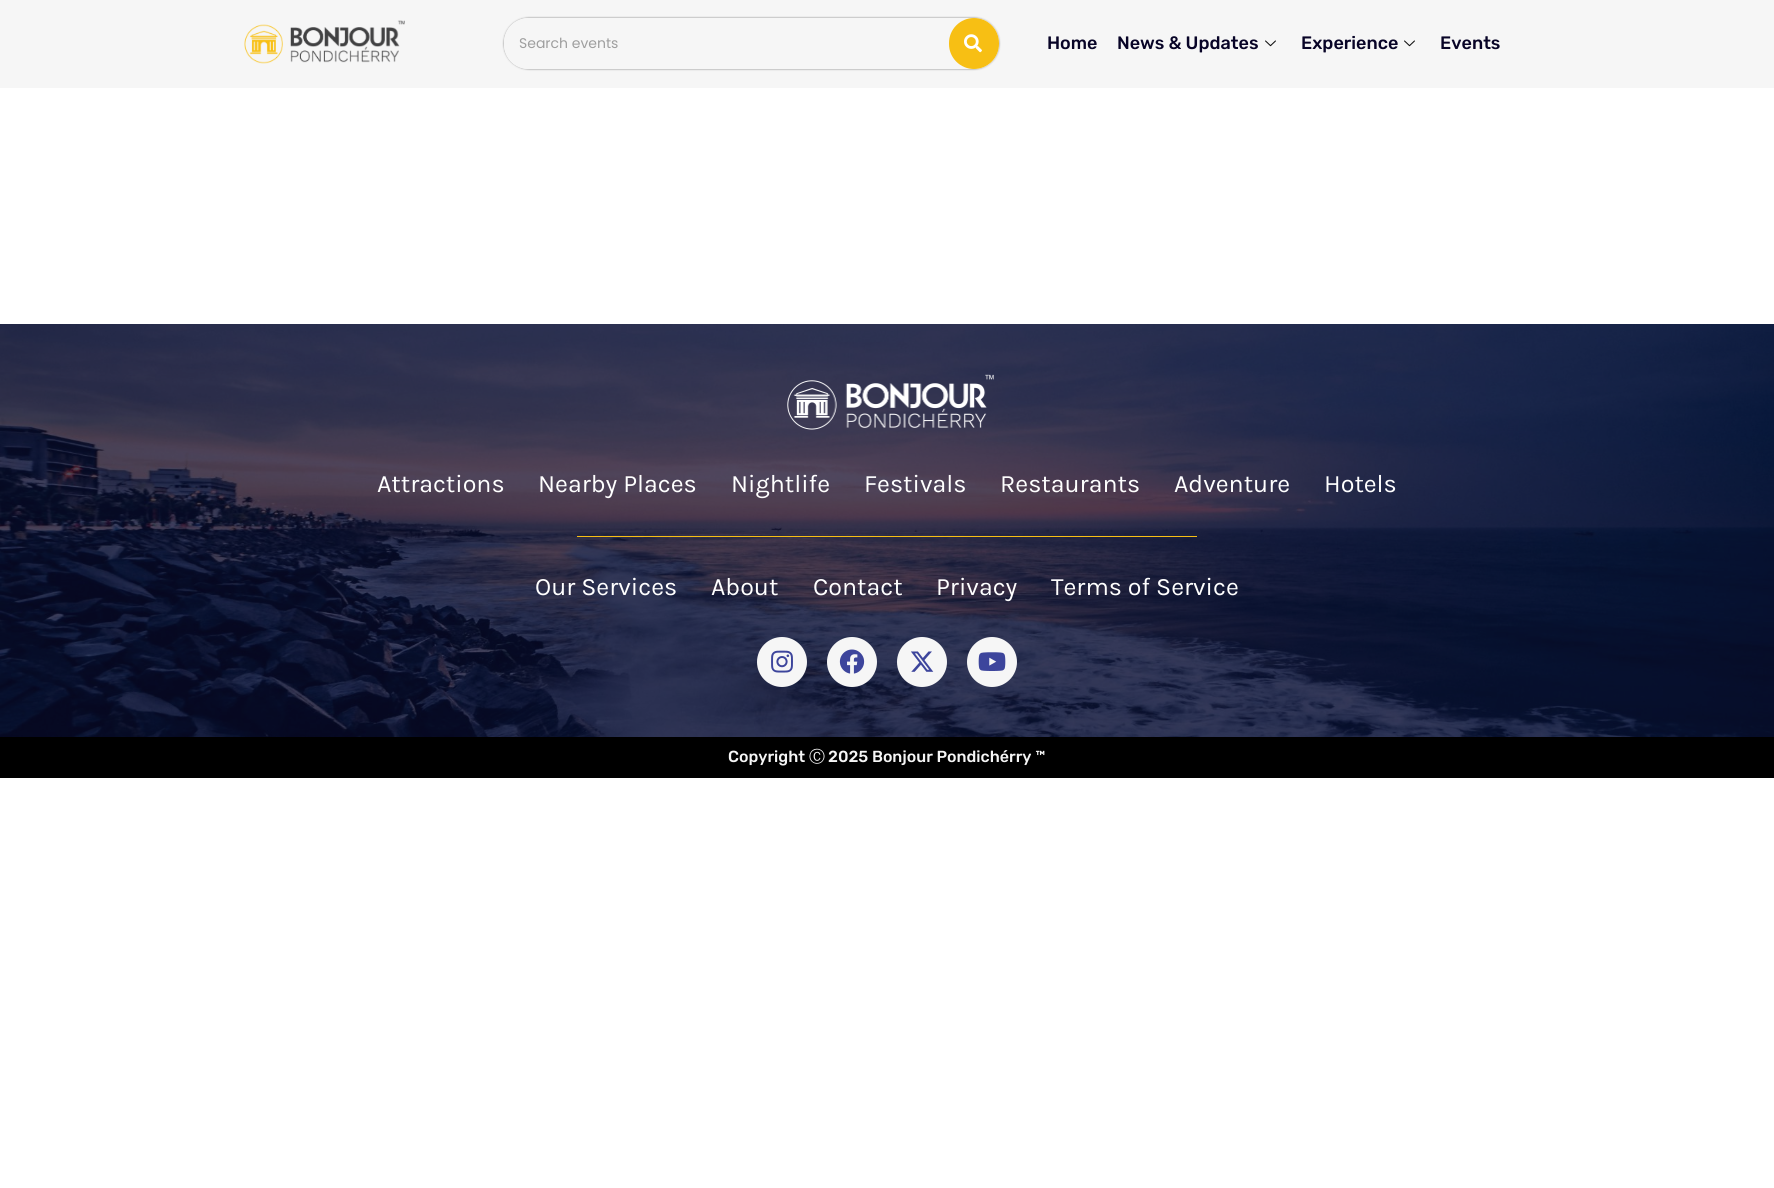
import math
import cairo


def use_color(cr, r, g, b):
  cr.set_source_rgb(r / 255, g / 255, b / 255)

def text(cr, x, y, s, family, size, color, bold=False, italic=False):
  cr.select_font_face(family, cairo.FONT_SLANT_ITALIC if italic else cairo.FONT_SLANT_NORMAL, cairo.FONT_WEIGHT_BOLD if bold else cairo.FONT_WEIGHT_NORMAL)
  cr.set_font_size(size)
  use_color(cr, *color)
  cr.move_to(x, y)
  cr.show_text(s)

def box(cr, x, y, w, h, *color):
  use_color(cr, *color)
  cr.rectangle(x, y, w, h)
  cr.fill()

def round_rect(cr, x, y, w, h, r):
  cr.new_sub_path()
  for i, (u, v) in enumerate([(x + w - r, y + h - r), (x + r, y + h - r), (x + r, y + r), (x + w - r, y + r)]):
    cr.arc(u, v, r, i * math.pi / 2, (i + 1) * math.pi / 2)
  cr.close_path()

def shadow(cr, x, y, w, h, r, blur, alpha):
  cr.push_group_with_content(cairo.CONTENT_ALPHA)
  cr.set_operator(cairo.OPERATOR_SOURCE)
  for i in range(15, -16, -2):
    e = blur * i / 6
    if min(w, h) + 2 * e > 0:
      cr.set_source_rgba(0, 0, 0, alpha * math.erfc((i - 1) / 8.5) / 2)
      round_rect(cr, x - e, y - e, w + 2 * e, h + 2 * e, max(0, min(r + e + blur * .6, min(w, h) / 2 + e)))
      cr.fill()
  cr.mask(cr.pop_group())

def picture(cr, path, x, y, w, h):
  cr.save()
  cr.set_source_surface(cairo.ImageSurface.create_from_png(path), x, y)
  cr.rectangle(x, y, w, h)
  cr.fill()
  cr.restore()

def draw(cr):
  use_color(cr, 255, 255, 255)
  cr.paint()
  box(cr, 0, 0, 1774, 88, 246, 246, 246)
  picture(cr, "img_01.png", 244, 20, 161, 44)
  cr.save()
  cr.set_fill_rule(cairo.FILL_RULE_EVEN_ODD)
  cr.new_path()
  cr.move_to(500, 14)
  cr.line_to(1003, 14)
  cr.line_to(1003, 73)
  cr.line_to(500, 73)
  cr.close_path()
  cr.move_to(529, 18)
  cr.line_to(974, 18)
  cr.curve_to(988, 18, 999, 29, 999, 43)
  cr.line_to(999, 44)
  cr.curve_to(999, 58, 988, 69, 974, 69)
  cr.line_to(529, 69)
  cr.curve_to(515, 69, 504, 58, 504, 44)
  cr.line_to(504, 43)
  cr.curve_to(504, 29, 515, 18, 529, 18)
  cr.close_path()
  cr.clip()
  use_color(cr, 0, 0, 0)
  shadow(cr, 504, 18, 495, 51, 25, 1, 0.5)
  cr.restore()
  cr.new_path()
  cr.move_to(529, 18)
  cr.line_to(949, 18)
  cr.line_to(949, 69)
  cr.line_to(529, 69)
  cr.curve_to(515, 69, 504, 58, 504, 44)
  cr.line_to(504, 43)
  cr.curve_to(504, 29, 515, 18, 529, 18)
  cr.close_path()
  cr.fill()
  use_color(cr, 247, 191, 20)
  round_rect(cr, 949, 18, 50, 51, 25)
  cr.fill()
  picture(cr, "img_02.png", 964, 34, 18, 19)
  picture(cr, "img_03.png", 1265, 40, 11, 7)
  picture(cr, "img_03.png", 1404, 40, 11, 7)
  picture(cr, "img_04.png", 0, 324, 1774, 413)
  picture(cr, "img_05.png", 787, 374, 207, 56)
  box(cr, 577, 536, 620, 1, 247, 191, 20)
  use_color(cr, 246, 246, 246)
  cr.arc(782, 662, 25, 0, 2 * math.pi)
  cr.fill()
  picture(cr, "img_06.png", 771, 650, 22, 23)
  cr.arc(852, 662, 25, 0, 2 * math.pi)
  cr.fill()
  picture(cr, "img_07.png", 839, 649, 26, 25)
  cr.arc(922, 662, 25, 0, 2 * math.pi)
  cr.fill()
  picture(cr, "img_08.png", 911, 651, 23, 21)
  cr.arc(992, 662, 25, 0, 2 * math.pi)
  cr.fill()
  picture(cr, "img_09.png", 978, 652, 28, 19)
  box(cr, 0, 737, 1774, 41, 0, 0, 0)
  text(cr, 519, 48, "Search events", "Poppins", 14, (158, 158, 158))
  text(cr, 1047, 49, "Home", "Rubik Medium", 18, (8, 4, 39))
  text(cr, 1117, 49, "News & Updates", "Rubik Medium", 18, (8, 4, 39))
  text(cr, 1301, 49, "Experience", "Rubik Medium", 18, (8, 4, 39))
  text(cr, 1440, 49, "Events", "Rubik Medium", 18, (8, 4, 39))
  text(cr, 377, 492, "Attractions", "Karla", 25, (255, 255, 255))
  text(cr, 538, 492, "Nearby Places", "Karla", 25, (255, 255, 255))
  text(cr, 731, 492, "Nightlife", "Karla", 25, (255, 255, 255))
  text(cr, 864, 492, "Festivals", "Karla", 25, (255, 255, 255))
  text(cr, 1000, 492, "Restaurants", "Karla", 25, (255, 255, 255))
  text(cr, 1174, 492, "Adventure", "Karla", 25, (255, 255, 255))
  text(cr, 1324, 492, "Hotels", "Karla", 25, (255, 255, 255))
  text(cr, 535, 595, "Our Services", "Karla", 25, (255, 255, 255))
  text(cr, 711, 595, "About", "Karla", 25, (255, 255, 255))
  text(cr, 813, 595, "Contact", "Karla", 25, (255, 255, 255))
  text(cr, 936, 595, "Privacy", "Karla", 25, (255, 255, 255))
  text(cr, 1051, 595, "Terms of Service", "Karla", 25, (255, 255, 255))
  text(cr, 728, 762, "Copyright", "Rubik Medium", 16, (246, 246, 246))
  text(cr, 809, 762, "Ⓒ", "WenQuanYi Zen Hei Medium", 16, (246, 246, 246))
  text(cr, 828, 762, "2025 Bonjour Pondichérry ™", "Rubik Medium", 16, (246, 246, 246))


surface = cairo.ImageSurface(cairo.FORMAT_RGB24, 1774, 1188)
cr = cairo.Context(surface)
options = cairo.FontOptions()
options.set_hint_metrics(cairo.HINT_METRICS_OFF)
options.set_hint_style(cairo.HINT_STYLE_NONE)
cr.set_font_options(options)
cr.set_miter_limit(4)
draw(cr)
surface.write_to_png("out.png")
